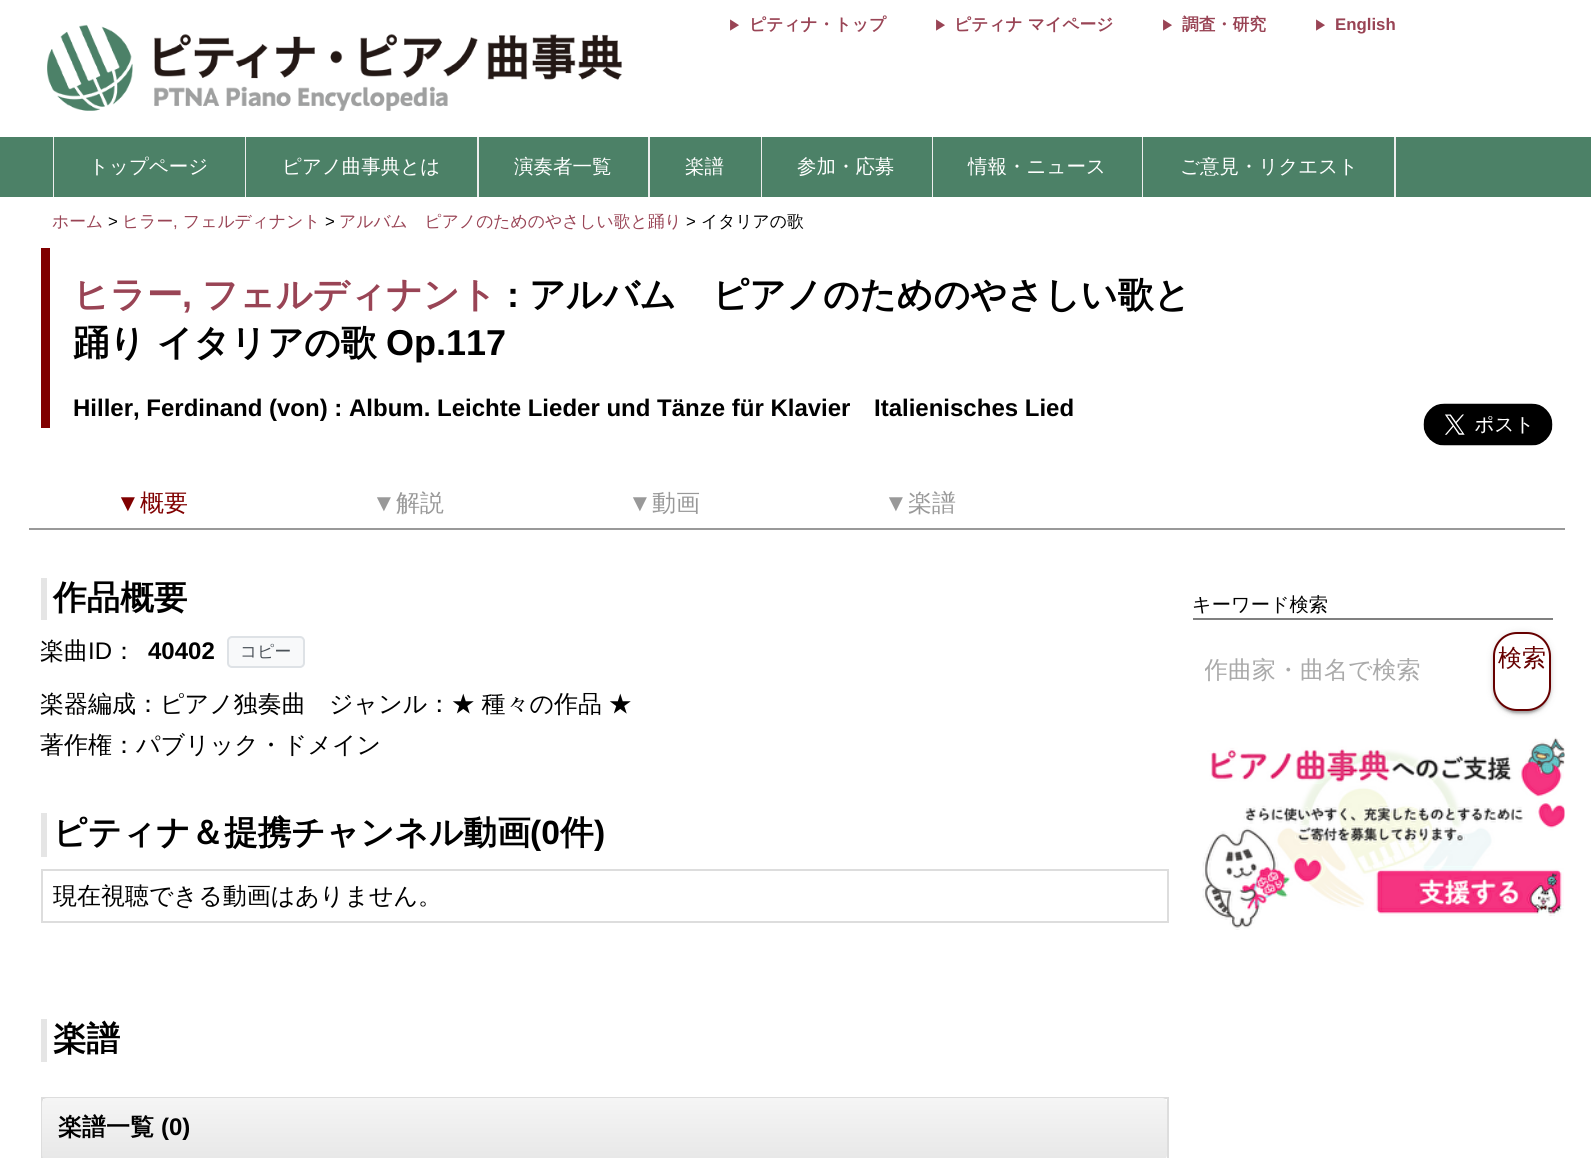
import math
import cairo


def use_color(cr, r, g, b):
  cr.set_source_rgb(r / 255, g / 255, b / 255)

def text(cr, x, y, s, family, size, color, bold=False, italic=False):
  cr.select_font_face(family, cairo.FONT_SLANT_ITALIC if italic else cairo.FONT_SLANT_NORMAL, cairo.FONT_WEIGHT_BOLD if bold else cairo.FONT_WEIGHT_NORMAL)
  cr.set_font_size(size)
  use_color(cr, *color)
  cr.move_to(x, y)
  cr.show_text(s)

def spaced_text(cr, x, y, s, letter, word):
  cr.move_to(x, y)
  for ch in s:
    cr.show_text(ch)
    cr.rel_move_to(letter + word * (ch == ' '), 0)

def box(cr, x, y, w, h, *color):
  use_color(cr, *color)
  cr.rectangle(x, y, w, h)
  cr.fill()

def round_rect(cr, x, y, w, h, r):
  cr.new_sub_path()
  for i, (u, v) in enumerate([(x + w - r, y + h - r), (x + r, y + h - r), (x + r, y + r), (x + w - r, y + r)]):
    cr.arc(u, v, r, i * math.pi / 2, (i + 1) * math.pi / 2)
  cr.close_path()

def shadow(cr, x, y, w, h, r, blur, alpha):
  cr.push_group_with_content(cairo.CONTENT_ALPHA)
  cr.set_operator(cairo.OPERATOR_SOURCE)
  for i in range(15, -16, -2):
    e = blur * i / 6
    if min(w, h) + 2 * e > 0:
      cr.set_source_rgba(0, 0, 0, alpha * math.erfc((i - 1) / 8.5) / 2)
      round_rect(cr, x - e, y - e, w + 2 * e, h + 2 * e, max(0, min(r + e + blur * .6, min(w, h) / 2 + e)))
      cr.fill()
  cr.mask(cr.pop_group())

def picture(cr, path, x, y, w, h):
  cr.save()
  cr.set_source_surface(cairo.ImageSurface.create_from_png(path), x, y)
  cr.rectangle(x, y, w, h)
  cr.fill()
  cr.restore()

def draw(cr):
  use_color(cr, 255, 255, 255)
  cr.paint()
  picture(cr, "img_01.png", 47, 24, 575, 87)
  box(cr, 0, 137, 1591, 60, 76, 129, 103)
  box(cr, 53, 137, 1, 60, 238, 238, 238)
  box(cr, 245, 137, 1, 60, 238, 238, 238)
  box(cr, 477, 137, 2, 60, 238, 238, 238)
  box(cr, 648, 137, 2, 60, 238, 238, 238)
  box(cr, 761, 137, 1, 60, 238, 238, 238)
  box(cr, 932, 137, 1, 60, 238, 238, 238)
  box(cr, 1142, 137, 1, 60, 238, 238, 238)
  box(cr, 1394, 137, 2, 60, 238, 238, 238)
  box(cr, 41, 248, 9, 180, 128, 0, 0)
  picture(cr, "img_02.png", 1423, 403, 130, 43)
  box(cr, 29, 528, 1536, 2, 153, 153, 153)
  box(cr, 41, 578, 6, 42, 229, 229, 229)
  use_color(cr, 248, 249, 250)
  round_rect(cr, 228, 637, 76, 30, 4)
  cr.fill_preserve()
  use_color(cr, 222, 226, 230)
  cr.stroke()
  box(cr, 41, 813, 6, 44, 229, 229, 229)
  cr.rectangle(42, 870, 1126, 52)
  use_color(cr, 221, 221, 221)
  cr.stroke()
  box(cr, 41, 1019, 6, 43, 229, 229, 229)
  cr.rectangle(42, 1098, 1126, 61)
  use_color(cr, 221, 221, 221)
  cr.stroke()
  cr.save()
  round_rect(cr, 42, 1098, 1125, 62, 5)
  cr.clip()
  gradient = cairo.LinearGradient(605, 1098, 605, 1158)
  gradient.add_color_stop_rgba(0, 0.961, 0.961, 0.961, 1)
  gradient.add_color_stop_rgba(1, 0.91, 0.91, 0.91, 1)
  cr.set_source(gradient)
  cr.new_path()
  cr.move_to(47, 1098)
  cr.line_to(1162, 1098)
  cr.curve_to(1165, 1098, 1167, 1100, 1167, 1103)
  cr.line_to(1167, 1158)
  cr.line_to(42, 1158)
  cr.line_to(42, 1103)
  cr.curve_to(42, 1100, 44, 1098, 47, 1098)
  cr.close_path()
  cr.fill()
  cr.restore()
  box(cr, 1193, 618, 360, 2, 128, 128, 128)
  use_color(cr, 0, 0, 0)
  shadow(cr, 1496, 639, 52, 74, 21, 1, 0.2)
  shadow(cr, 1493, 633, 58, 80, 24, 4, 0.12)
  shadow(cr, 1493, 635, 58, 79, 24, 1.5, 0.14)
  use_color(cr, 255, 255, 255)
  round_rect(cr, 1494, 633, 56, 77, 23)
  cr.fill_preserve()
  use_color(cr, 102, 0, 0)
  cr.stroke()
  picture(cr, "img_03.png", 1202, 737, 363, 193)
  text(cr, 728, 30, "▶", "WenQuanYi Zen Hei", 13, (153, 68, 85), bold=True)
  text(cr, 749, 30, "ピティナ・トップ", "WenQuanYi Zen Hei", 16.8, (153, 68, 85), bold=True)
  text(cr, 934, 30, "▶", "WenQuanYi Zen Hei", 13, (153, 68, 85), bold=True)
  text(cr, 954, 30, "ピティナ マイページ", "WenQuanYi Zen Hei", 16.8, (153, 68, 85), bold=True)
  text(cr, 1161, 30, "▶", "WenQuanYi Zen Hei", 13, (153, 68, 85), bold=True)
  text(cr, 1182, 30, "調査・研究", "WenQuanYi Zen Hei", 16.8, (153, 68, 85), bold=True)
  text(cr, 1314, 30, "▶", "WenQuanYi Zen Hei", 13, (153, 68, 85), bold=True)
  text(cr, 1335, 30, "English", "Liberation Sans", 16.8, (153, 68, 85), bold=True)
  text(cr, 89, 173, "トップページ", "WenQuanYi Zen Hei Medium", 19.5, (255, 255, 255))
  text(cr, 282, 173, "ピアノ曲事典とは", "WenQuanYi Zen Hei Medium", 19.5, (255, 255, 255))
  text(cr, 514, 173, "演奏者一覧", "WenQuanYi Zen Hei Medium", 19.5, (255, 255, 255))
  text(cr, 685, 173, "楽譜", "WenQuanYi Zen Hei Medium", 19.5, (255, 255, 255))
  text(cr, 797, 173, "参加・応募", "WenQuanYi Zen Hei Medium", 19.5, (255, 255, 255))
  text(cr, 968, 173, "情報・ニュース", "WenQuanYi Zen Hei Medium", 19.5, (255, 255, 255))
  text(cr, 1180, 173, "ご意見・リクエスト", "WenQuanYi Zen Hei Medium", 19.5, (255, 255, 255))
  text(cr, 52, 227, "ホーム", "WenQuanYi Zen Hei Medium", 16.8, (153, 68, 85))
  text(cr, 108, 227, ">", "Liberation Sans", 16.8, (0, 0, 0))
  text(cr, 122, 227, "ヒラー", "WenQuanYi Zen Hei Medium", 16.8, (153, 68, 85))
  text(cr, 183, 227, "フェルディナント", "WenQuanYi Zen Hei Medium", 16.8, (153, 68, 85))
  text(cr, 325, 227, ">", "Liberation Sans", 16.8, (0, 0, 0))
  text(cr, 339, 227, "アルバム　ピアノのためのやさしい歌と踊り", "WenQuanYi Zen Hei Medium", 16.8, (153, 68, 85))
  text(cr, 686, 227, ">", "Liberation Sans", 16.8, (0, 0, 0))
  text(cr, 701, 227, "イタリアの歌", "WenQuanYi Zen Hei Medium", 16.8, (0, 0, 0))
  text(cr, 173, 227, ",", "Liberation Sans", 16.8, (153, 68, 85))
  text(cr, 73, 307, "ヒラー", "WenQuanYi Zen Hei", 36, (153, 68, 85), bold=True)
  text(cr, 182, 307, ",", "Liberation Sans", 36, (153, 68, 85), bold=True)
  text(cr, 202, 307, "フェルディナント", "WenQuanYi Zen Hei", 36, (153, 68, 85), bold=True)
  text(cr, 507, 307, ":", "Liberation Sans", 36, (0, 0, 0), bold=True)
  text(cr, 529, 307, "アルバム　ピアノのためのやさしい歌と", "WenQuanYi Zen Hei", 36, (0, 0, 0), bold=True)
  text(cr, 73, 355, "踊り イタリアの歌", "WenQuanYi Zen Hei", 36, (0, 0, 0), bold=True)
  text(cr, 386, 355, "Op.117", "Liberation Sans", 36, (0, 0, 0), bold=True)
  text(cr, 73, 416, "Hiller, Ferdinand (von) : Album. Leichte Lieder und Tänze für Klavier", "Liberation Sans", 24, (0, 0, 0), bold=True)
  text(cr, 874, 416, "Italienisches Lied", "Liberation Sans", 24, (0, 0, 0), bold=True)
  text(cr, 116, 511, "▼", "Liberation Sans", 24, (128, 0, 0))
  text(cr, 140, 511, "概要", "WenQuanYi Zen Hei Medium", 24, (128, 0, 0))
  text(cr, 372, 511, "▼", "Liberation Sans", 24, (153, 153, 153))
  text(cr, 396, 511, "解説", "WenQuanYi Zen Hei Medium", 24, (153, 153, 153))
  text(cr, 628, 511, "▼", "Liberation Sans", 24, (153, 153, 153))
  text(cr, 652, 511, "動画", "WenQuanYi Zen Hei Medium", 24, (153, 153, 153))
  text(cr, 884, 511, "▼", "Liberation Sans", 24, (153, 153, 153))
  text(cr, 908, 511, "楽譜", "WenQuanYi Zen Hei Medium", 24, (153, 153, 153))
  text(cr, 53, 609, "作品概要", "WenQuanYi Zen Hei", 33.6, (0, 0, 0), bold=True)
  text(cr, 40, 659, "楽曲", "WenQuanYi Zen Hei Medium", 24, (0, 0, 0))
  text(cr, 88, 659, "ID", "Liberation Sans", 24, (0, 0, 0))
  text(cr, 112, 659, "：", "WenQuanYi Zen Hei Medium", 24, (0, 0, 0))
  text(cr, 148, 659, "40402", "Liberation Sans", 24, (0, 0, 0), bold=True)
  text(cr, 240, 657, "コピー", "WenQuanYi Zen Hei Medium", 16.8, (73, 80, 87))
  text(cr, 40, 712, "楽器編成：ピアノ独奏曲", "WenQuanYi Zen Hei Medium", 24, (0, 0, 0))
  spaced_text(cr, 329, 712, "ジャンル：★ 種々の作品 ★", 0, -1)
  text(cr, 40, 753, "著作権：パブリック・ドメイン", "WenQuanYi Zen Hei Medium", 24, (0, 0, 0))
  text(cr, 53, 844, "ピティナ＆提携チャンネル動画", "WenQuanYi Zen Hei", 33.6, (0, 0, 0), bold=True)
  text(cr, 530, 844, "(0", "Liberation Sans", 33.6, (0, 0, 0), bold=True)
  text(cr, 560, 844, "件", "WenQuanYi Zen Hei", 33.6, (0, 0, 0), bold=True)
  text(cr, 594, 844, ")", "Liberation Sans", 33.6, (0, 0, 0), bold=True)
  text(cr, 53, 904, "現在視聴できる動画はありません。", "WenQuanYi Zen Hei Medium", 24, (0, 0, 0))
  text(cr, 53, 1050, "楽譜", "WenQuanYi Zen Hei", 33.6, (0, 0, 0), bold=True)
  text(cr, 58, 1135, "楽譜一覧", "WenQuanYi Zen Hei", 24, (0, 0, 0), bold=True)
  text(cr, 161, 1135, "(0)", "Liberation Sans", 24, (0, 0, 0), bold=True)
  text(cr, 1192, 611, "キーワード検索", "WenQuanYi Zen Hei Medium", 19.25, (0, 0, 0))
  cr.save()
  cr.rectangle(1205, 656, 276, 31)
  cr.clip()
  text(cr, 1204, 678, "作曲家・曲名で検索", "WenQuanYi Zen Hei Medium", 24, (170, 170, 170))
  cr.restore()
  text(cr, 1498, 666, "検索", "WenQuanYi Zen Hei Medium", 24, (102, 0, 0))


surface = cairo.ImageSurface(cairo.FORMAT_RGB24, 1591, 1158)
cr = cairo.Context(surface)
options = cairo.FontOptions()
options.set_hint_metrics(cairo.HINT_METRICS_OFF)
options.set_hint_style(cairo.HINT_STYLE_NONE)
cr.set_font_options(options)
cr.set_miter_limit(4)
draw(cr)
surface.write_to_png("out.png")
